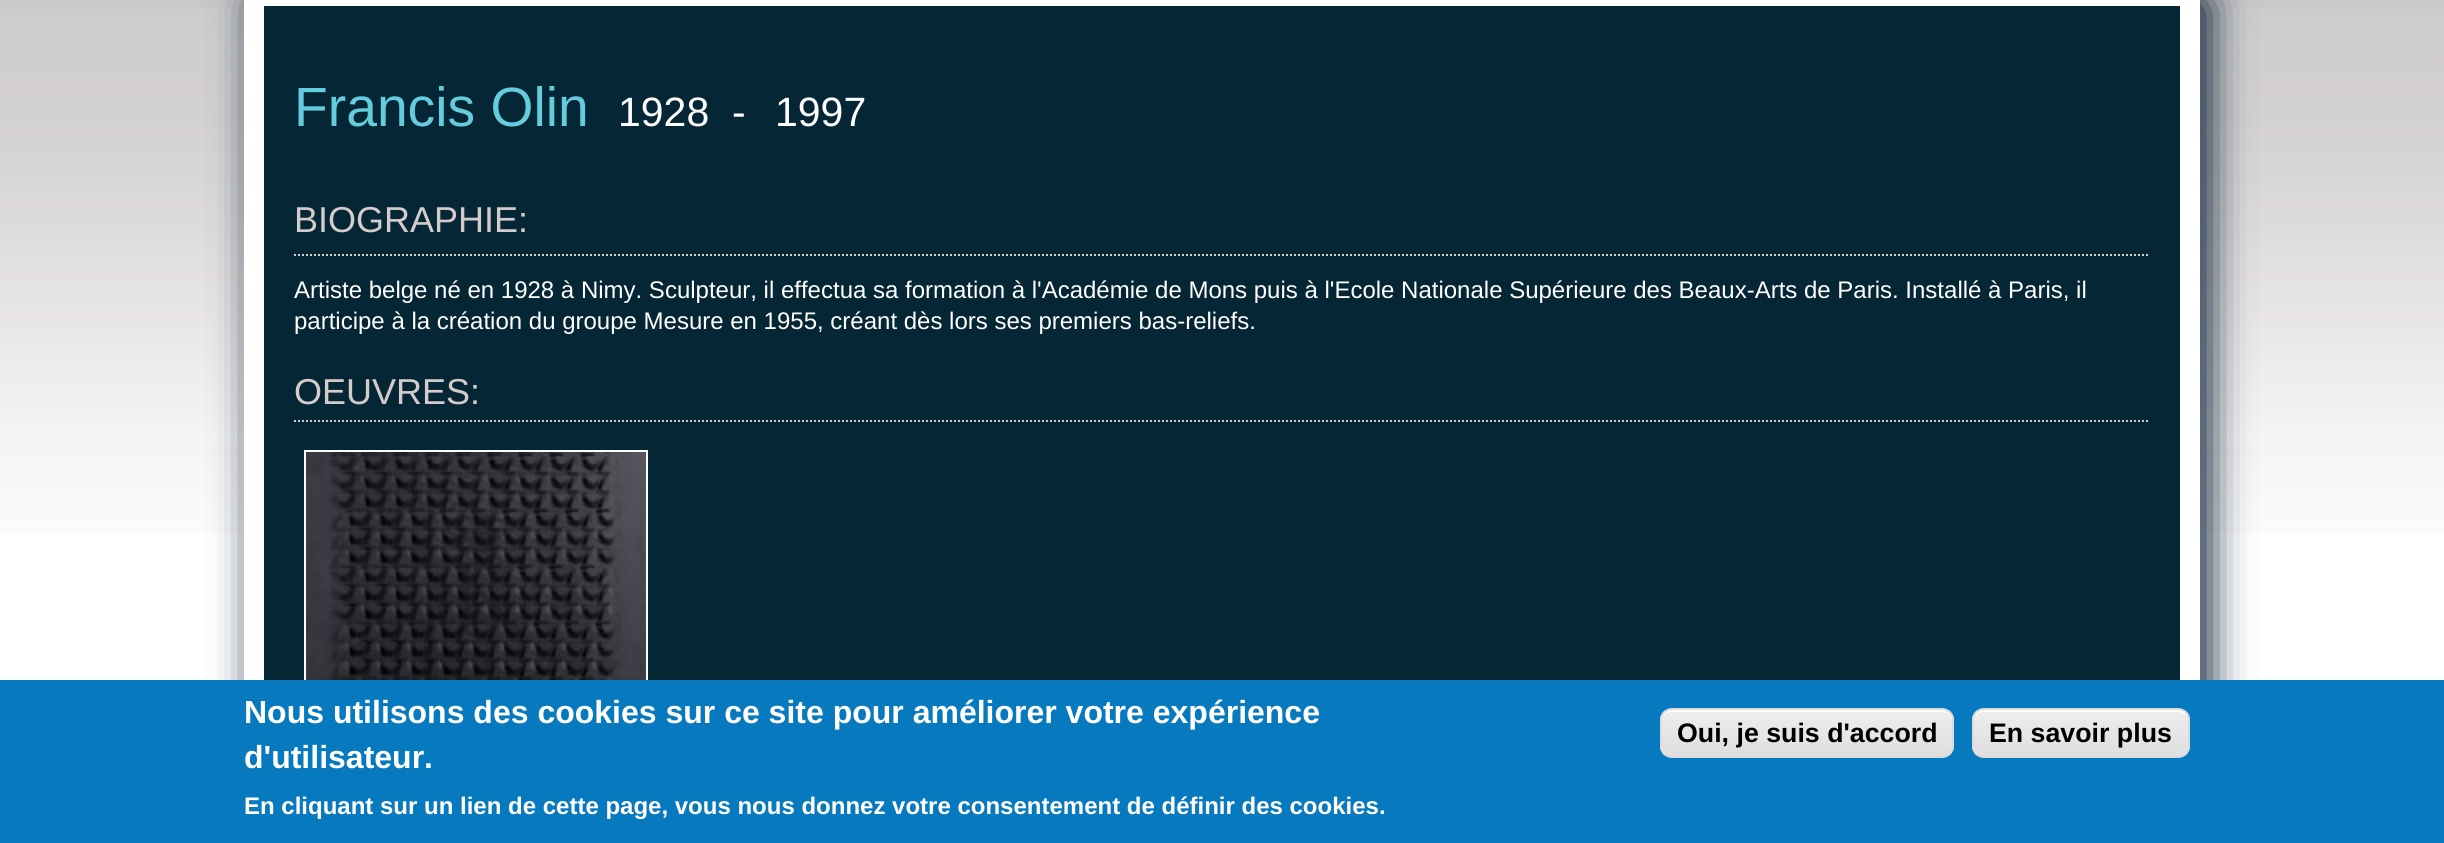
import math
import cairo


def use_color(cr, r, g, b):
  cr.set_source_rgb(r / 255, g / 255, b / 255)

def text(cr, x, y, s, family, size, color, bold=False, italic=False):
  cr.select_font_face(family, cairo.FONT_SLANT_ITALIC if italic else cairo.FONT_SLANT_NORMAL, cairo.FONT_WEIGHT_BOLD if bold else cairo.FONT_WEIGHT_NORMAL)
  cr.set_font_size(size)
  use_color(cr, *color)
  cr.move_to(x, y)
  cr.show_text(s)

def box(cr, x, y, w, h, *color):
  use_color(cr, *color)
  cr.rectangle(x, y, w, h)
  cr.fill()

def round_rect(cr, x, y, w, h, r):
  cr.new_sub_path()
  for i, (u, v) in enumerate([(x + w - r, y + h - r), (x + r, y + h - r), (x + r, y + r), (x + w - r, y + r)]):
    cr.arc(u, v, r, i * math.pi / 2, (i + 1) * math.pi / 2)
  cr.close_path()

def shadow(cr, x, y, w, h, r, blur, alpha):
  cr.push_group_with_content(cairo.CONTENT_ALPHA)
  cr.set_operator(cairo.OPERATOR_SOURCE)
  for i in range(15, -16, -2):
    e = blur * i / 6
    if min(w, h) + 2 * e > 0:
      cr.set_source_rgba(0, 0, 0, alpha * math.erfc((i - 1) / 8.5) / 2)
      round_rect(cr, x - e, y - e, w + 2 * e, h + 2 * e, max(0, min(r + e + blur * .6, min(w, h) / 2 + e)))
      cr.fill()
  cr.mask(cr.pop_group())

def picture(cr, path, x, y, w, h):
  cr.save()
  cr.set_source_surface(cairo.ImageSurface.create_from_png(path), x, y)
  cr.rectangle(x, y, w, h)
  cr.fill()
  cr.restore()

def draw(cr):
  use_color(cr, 255, 255, 255)
  cr.paint()
  picture(cr, "img_01.png", 0, 0, 2444, 533)
  use_color(cr, 5, 27, 50)
  shadow(cr, 254, -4, 1956, 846, 10, 20, 1)
  cr.rectangle(254, -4, 1936, 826)
  use_color(cr, 255, 255, 255)
  cr.set_line_width(20)
  cr.stroke()
  box(cr, 264, 6, 1916, 674, 5, 38, 52)
  cr.new_path()
  cr.move_to(294, 255)
  cr.line_to(2150, 255)
  use_color(cr, 212, 204, 204)
  cr.set_line_width(2)
  cr.set_dash([2, 2])
  cr.stroke()
  cr.new_path()
  cr.move_to(294, 421)
  cr.line_to(2150, 421)
  cr.stroke()
  cr.rectangle(305, 451, 342, 242)
  use_color(cr, 255, 255, 255)
  cr.set_dash([])
  cr.stroke()
  picture(cr, "img_02.png", 306, 452, 340, 228)
  box(cr, 0, 680, 2444, 163, 7, 121, 191)
  cr.save()
  round_rect(cr, 1660, 708, 294, 50, 12)
  cr.clip()
  gradient = cairo.LinearGradient(1807, 710, 1807, 756)
  gradient.add_color_stop_rgba(0.05, 0.929, 0.929, 0.929, 1)
  gradient.add_color_stop_rgba(1, 0.875, 0.875, 0.875, 1)
  cr.set_source(gradient)
  cr.rectangle(1660, 710, 294, 46)
  cr.fill()
  cr.restore()
  use_color(cr, 255, 255, 255)
  cr.new_path()
  cr.move_to(1672, 712)
  cr.line_to(1942, 712)
  cr.curve_to(1948, 712, 1952, 716, 1952, 722)
  cr.line_to(1952, 720)
  cr.curve_to(1952, 714, 1948, 710, 1942, 710)
  cr.line_to(1672, 710)
  cr.curve_to(1666, 710, 1662, 714, 1662, 720)
  cr.line_to(1662, 722)
  cr.curve_to(1662, 716, 1666, 712, 1672, 712)
  cr.close_path()
  cr.fill()
  round_rect(cr, 1661, 709, 292, 48, 11)
  use_color(cr, 220, 220, 220)
  cr.stroke()
  cr.save()
  round_rect(cr, 1972, 708, 218, 50, 12)
  cr.clip()
  gradient = cairo.LinearGradient(2081, 710, 2081, 756)
  gradient.add_color_stop_rgba(0.05, 0.929, 0.929, 0.929, 1)
  gradient.add_color_stop_rgba(1, 0.875, 0.875, 0.875, 1)
  cr.set_source(gradient)
  cr.rectangle(1972, 710, 218, 46)
  cr.fill()
  cr.restore()
  use_color(cr, 255, 255, 255)
  cr.new_path()
  cr.move_to(1984, 712)
  cr.line_to(2178, 712)
  cr.curve_to(2184, 712, 2188, 716, 2188, 722)
  cr.line_to(2188, 720)
  cr.curve_to(2188, 714, 2184, 710, 2178, 710)
  cr.line_to(1984, 710)
  cr.curve_to(1978, 710, 1974, 714, 1974, 720)
  cr.line_to(1974, 722)
  cr.curve_to(1974, 716, 1978, 712, 1984, 712)
  cr.close_path()
  cr.fill()
  round_rect(cr, 1973, 709, 216, 48, 11)
  use_color(cr, 220, 220, 220)
  cr.stroke()
  text(cr, 294, 126, "Francis Olin", "Liberation Sans", 55.25, (100, 204, 220))
  text(cr, 618, 126, "1928", "Liberation Sans", 41, (255, 255, 255))
  text(cr, 732, 126, "-", "Liberation Sans", 41, (255, 255, 255))
  text(cr, 775, 126, "1997", "Liberation Sans", 41, (255, 255, 255))
  text(cr, 294, 232, "BIOGRAPHIE:", "Liberation Sans", 36, (212, 204, 204))
  text(cr, 294, 298, "Artiste belge né en 1928 à Nimy. Sculpteur, il effectua sa formation à l'Académie de Mons puis à l'Ecole Nationale Supérieure des Beaux-Arts de Paris. Installé à Paris, il", "Liberation Sans", 24, (255, 255, 255))
  text(cr, 294, 329, "participe à la création du groupe Mesure en 1955, créant dès lors ses premiers bas-reliefs.", "Liberation Sans", 24, (255, 255, 255))
  text(cr, 294, 404, "OEUVRES:", "Liberation Sans", 36, (212, 204, 204))
  text(cr, 244, 723, "Nous utilisons des cookies sur ce site pour améliorer votre expérience", "Liberation Sans", 32, (255, 255, 255), bold=True)
  text(cr, 244, 768, "d'utilisateur.", "Liberation Sans", 32, (255, 255, 255), bold=True)
  text(cr, 244, 814, "En cliquant sur un lien de cette page, vous nous donnez votre consentement de définir des cookies.", "Liberation Sans", 24, (255, 255, 255), bold=True)
  text(cr, 1677, 742, "Oui, je suis d'accord", "Liberation Sans", 26.75, (0, 0, 0), bold=True)
  text(cr, 1989, 742, "En savoir plus", "Liberation Sans", 26.75, (0, 0, 0), bold=True)


surface = cairo.ImageSurface(cairo.FORMAT_RGB24, 2444, 843)
cr = cairo.Context(surface)
options = cairo.FontOptions()
options.set_hint_metrics(cairo.HINT_METRICS_OFF)
options.set_hint_style(cairo.HINT_STYLE_NONE)
cr.set_font_options(options)
cr.set_miter_limit(4)
draw(cr)
surface.write_to_png("out.png")
